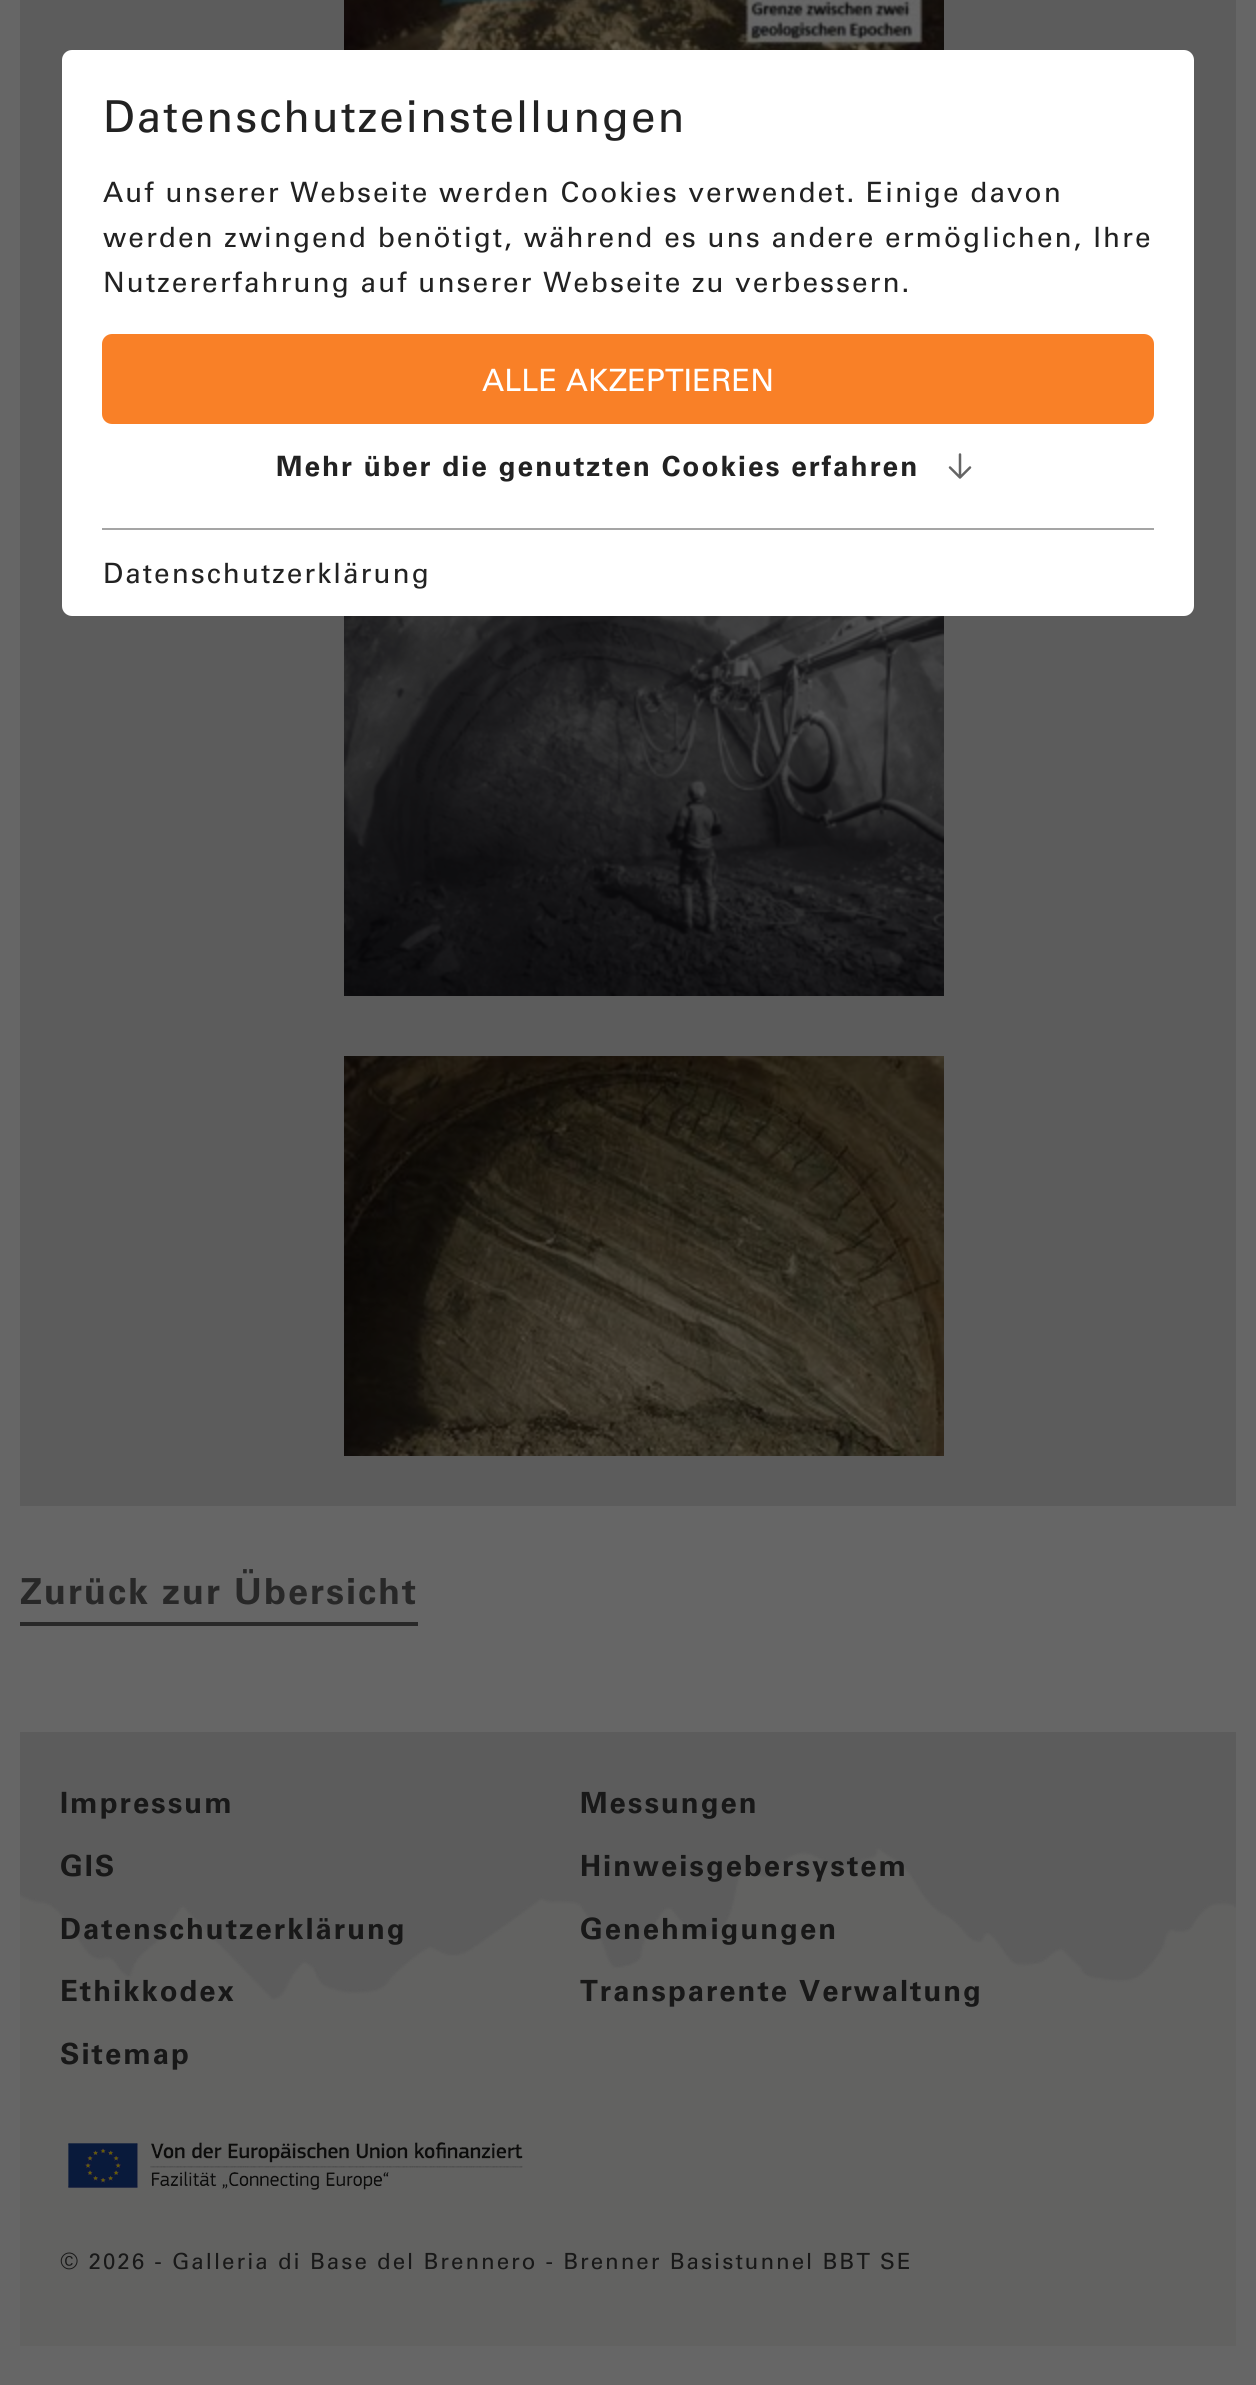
import math
import cairo


def use_color(cr, r, g, b):
  cr.set_source_rgb(r / 255, g / 255, b / 255)

def text(cr, x, y, s, family, size, color, bold=False, italic=False):
  cr.select_font_face(family, cairo.FONT_SLANT_ITALIC if italic else cairo.FONT_SLANT_NORMAL, cairo.FONT_WEIGHT_BOLD if bold else cairo.FONT_WEIGHT_NORMAL)
  cr.set_font_size(size)
  use_color(cr, *color)
  cr.move_to(x, y)
  cr.show_text(s)

def spaced_text(cr, x, y, s, letter, word):
  cr.move_to(x, y)
  for ch in s:
    cr.show_text(ch)
    cr.rel_move_to(letter + word * (ch == ' '), 0)

def box(cr, x, y, w, h, *color):
  use_color(cr, *color)
  cr.rectangle(x, y, w, h)
  cr.fill()

def round_rect(cr, x, y, w, h, r):
  cr.new_sub_path()
  for i, (u, v) in enumerate([(x + w - r, y + h - r), (x + r, y + h - r), (x + r, y + r), (x + w - r, y + r)]):
    cr.arc(u, v, r, i * math.pi / 2, (i + 1) * math.pi / 2)
  cr.close_path()

def picture(cr, path, x, y, w, h):
  cr.save()
  cr.set_source_surface(cairo.ImageSurface.create_from_png(path), x, y)
  cr.rectangle(x, y, w, h)
  cr.fill()
  cr.restore()

def draw(cr):
  use_color(cr, 102, 102, 102)
  cr.paint()
  box(cr, 20, 0, 1216, 1506, 92, 92, 92)
  use_color(cr, 255, 255, 255)
  round_rect(cr, 62, 50, 1132, 566, 10)
  cr.fill()
  use_color(cr, 249, 128, 39)
  round_rect(cr, 102, 334, 1052, 90, 10)
  cr.fill()
  cr.new_path()
  cr.move_to(960, 454.5)
  cr.line_to(960, 477.5)
  cr.move_to(970, 467.5)
  cr.line_to(960, 477.5)
  cr.move_to(950, 467.5)
  cr.line_to(960, 477.5)
  use_color(cr, 101, 101, 101)
  cr.set_line_width(2.5)
  cr.set_line_cap(cairo.LINE_CAP_ROUND)
  cr.set_line_join(cairo.LINE_JOIN_ROUND)
  cr.stroke()
  box(cr, 102, 528, 1052, 2, 165, 165, 165)
  picture(cr, "img_01.png", 344, 0, 600, 50)
  picture(cr, "img_02.png", 344, 616, 600, 380)
  picture(cr, "img_03.png", 344, 1056, 600, 400)
  box(cr, 20, 1622, 398, 4, 40, 40, 40)
  box(cr, 20, 1846, 1216, 500, 98, 98, 97)
  picture(cr, "img_04.png", 20, 1732, 1216, 268)
  picture(cr, "img_05.png", 68, 2142, 455, 48)
  cr.select_font_face("Univers")
  cr.set_font_size(44)
  use_color(cr, 34, 34, 34)
  spaced_text(cr, 103, 132, "Datenschutzeinstellungen", 2, 0)
  cr.set_font_size(28)
  spaced_text(cr, 103, 202, "Auf unserer Webseite werden Cookies verwendet. Einige davon", 2, 0)
  spaced_text(cr, 103, 247, "werden zwingend benötigt, während es uns andere ermöglichen, Ihre", 2, 0)
  spaced_text(cr, 103, 292, "Nutzererfahrung auf unserer Webseite zu verbessern.", 2, 0)
  text(cr, 482, 391, "ALLE AKZEPTIEREN", "Univers", 30.75, (255, 255, 255))
  cr.select_font_face("Univers", cairo.FONT_SLANT_NORMAL, cairo.FONT_WEIGHT_BOLD)
  cr.set_font_size(28)
  use_color(cr, 34, 34, 34)
  spaced_text(cr, 276, 476, "Mehr über die genutzten Cookies erfahren", 2, 0)
  cr.select_font_face("Univers")
  spaced_text(cr, 103, 583, "Datenschutzerklärung", 2, 0)
  cr.select_font_face("Univers", cairo.FONT_SLANT_NORMAL, cairo.FONT_WEIGHT_BOLD)
  cr.set_font_size(36)
  use_color(cr, 40, 40, 40)
  spaced_text(cr, 20, 1604, "Zurück zur Übersicht", 2, 0)
  cr.set_font_size(29.2)
  use_color(cr, 24, 24, 24)
  spaced_text(cr, 60, 1813, "Impressum", 2, 0)
  spaced_text(cr, 580, 1813, "Messungen", 2, 0)
  spaced_text(cr, 60, 1876, "GIS", 2, 0)
  spaced_text(cr, 580, 1876, "Hinweisgebersystem", 2, 0)
  spaced_text(cr, 60, 1939, "Datenschutzerklärung", 2, 0)
  spaced_text(cr, 580, 1939, "Genehmigungen", 2, 0)
  spaced_text(cr, 60, 2001, "Ethikkodex", 2, 0)
  spaced_text(cr, 580, 2001, "Transparente Verwaltung", 2, 0)
  spaced_text(cr, 60, 2064, "Sitemap", 2, 0)
  cr.select_font_face("Univers")
  cr.set_font_size(22.3)
  spaced_text(cr, 60, 2269, "© 2026 - Galleria di Base del Brennero - Brenner Basistunnel BBT SE", 2, 0)


surface = cairo.ImageSurface(cairo.FORMAT_RGB24, 1256, 2385)
cr = cairo.Context(surface)
options = cairo.FontOptions()
options.set_hint_metrics(cairo.HINT_METRICS_OFF)
options.set_hint_style(cairo.HINT_STYLE_NONE)
cr.set_font_options(options)
cr.set_miter_limit(4)
draw(cr)
surface.write_to_png("out.png")
